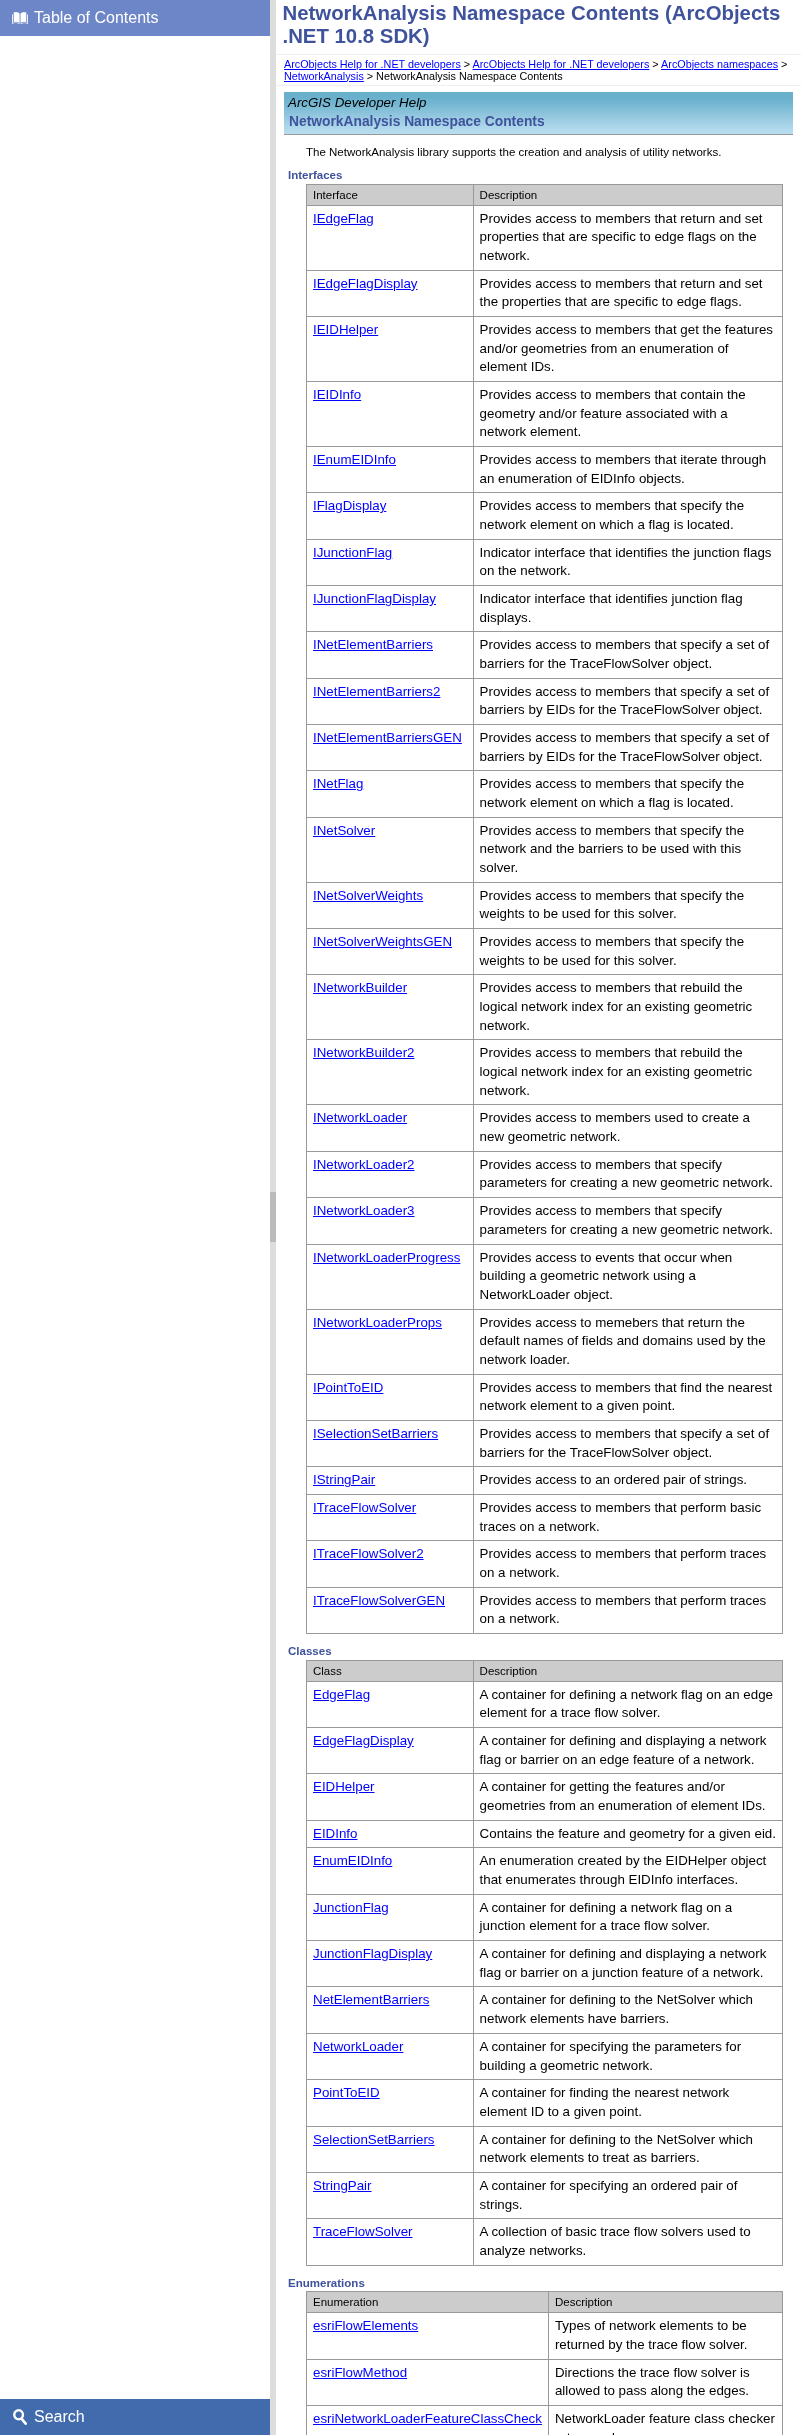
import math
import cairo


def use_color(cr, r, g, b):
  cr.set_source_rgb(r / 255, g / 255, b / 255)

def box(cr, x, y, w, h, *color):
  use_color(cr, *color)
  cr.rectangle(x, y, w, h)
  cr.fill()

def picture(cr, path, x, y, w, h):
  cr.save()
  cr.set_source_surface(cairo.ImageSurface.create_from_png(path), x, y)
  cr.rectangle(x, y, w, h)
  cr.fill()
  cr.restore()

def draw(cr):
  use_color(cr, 255, 255, 255)
  cr.paint()
  picture(cr, "img_01.png", 0, 0, 270, 2435)
  box(cr, 270, 0, 6, 2435, 221, 221, 221)
  box(cr, 270, 1192, 6, 50, 187, 187, 187)
  picture(cr, "img_02.png", 276, 5, 525, 2430)


surface = cairo.ImageSurface(cairo.FORMAT_RGB24, 801, 2435)
cr = cairo.Context(surface)
options = cairo.FontOptions()
options.set_hint_metrics(cairo.HINT_METRICS_OFF)
options.set_hint_style(cairo.HINT_STYLE_NONE)
cr.set_font_options(options)
cr.set_miter_limit(4)
draw(cr)
surface.write_to_png("out.png")
